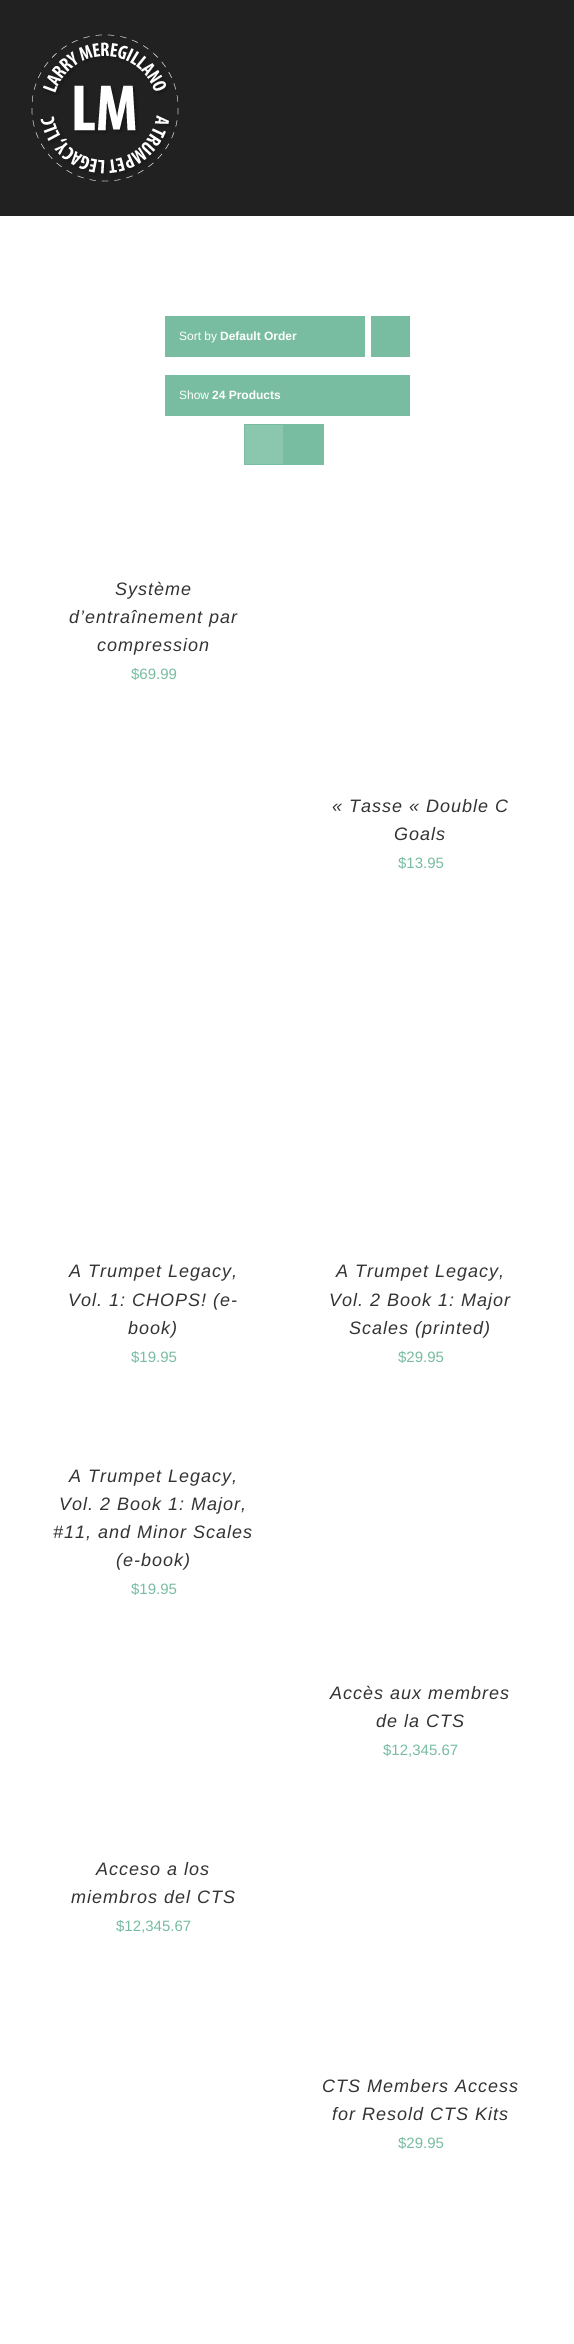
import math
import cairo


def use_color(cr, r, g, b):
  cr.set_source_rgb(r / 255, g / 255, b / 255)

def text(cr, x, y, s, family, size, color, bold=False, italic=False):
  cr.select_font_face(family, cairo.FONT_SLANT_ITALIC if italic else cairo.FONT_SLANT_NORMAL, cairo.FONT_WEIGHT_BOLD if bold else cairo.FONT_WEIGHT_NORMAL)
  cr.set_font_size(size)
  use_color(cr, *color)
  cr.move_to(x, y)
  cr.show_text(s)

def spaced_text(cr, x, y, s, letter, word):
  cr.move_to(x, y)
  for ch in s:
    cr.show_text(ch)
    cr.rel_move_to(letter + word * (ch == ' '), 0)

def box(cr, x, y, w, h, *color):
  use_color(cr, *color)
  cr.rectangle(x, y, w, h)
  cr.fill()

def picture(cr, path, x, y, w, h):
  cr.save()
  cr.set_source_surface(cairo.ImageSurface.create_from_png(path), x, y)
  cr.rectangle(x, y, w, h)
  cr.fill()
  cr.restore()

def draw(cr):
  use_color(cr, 255, 255, 255)
  cr.paint()
  box(cr, 0, 0, 574, 216, 33, 33, 33)
  picture(cr, "img_01.png", 31, 34, 148, 148)
  box(cr, 165, 316, 200, 41, 120, 188, 161)
  box(cr, 371, 316, 39, 41, 120, 188, 161)
  box(cr, 165, 375, 245, 41, 120, 188, 161)
  cr.rectangle(244.5, 424.5, 79, 40)
  cr.set_line_width(1)
  cr.stroke()
  box(cr, 245, 425, 38, 39, 139, 198, 174)
  box(cr, 283, 425, 40, 39, 120, 188, 161)
  text(cr, 179, 340, "Sort by", "Liberation Sans", 12, (255, 255, 255))
  text(cr, 220, 340, "Default Order", "Liberation Sans", 12, (255, 255, 255), bold=True)
  text(cr, 179, 399, "Show", "Liberation Sans", 12, (255, 255, 255))
  text(cr, 212, 399, "24 Products", "Liberation Sans", 12, (255, 255, 255), bold=True)
  cr.select_font_face("Liberation Sans", cairo.FONT_SLANT_ITALIC)
  cr.set_font_size(18)
  use_color(cr, 51, 51, 51)
  spaced_text(cr, 115, 595, "Système", 1, 0)
  spaced_text(cr, 69, 623, "d’entraînement par", 1, 0)
  spaced_text(cr, 97, 651, "compression", 1, 0)
  text(cr, 131, 679, "$69.99", "Liberation Sans", 15, (120, 188, 161))
  cr.select_font_face("Liberation Sans", cairo.FONT_SLANT_ITALIC)
  cr.set_font_size(18)
  use_color(cr, 51, 51, 51)
  spaced_text(cr, 332, 812, "« Tasse « Double C", 1, 0)
  spaced_text(cr, 394, 840, "Goals", 1, 0)
  text(cr, 398, 868, "$13.95", "Liberation Sans", 15, (120, 188, 161))
  cr.select_font_face("Liberation Sans", cairo.FONT_SLANT_ITALIC)
  cr.set_font_size(18)
  use_color(cr, 51, 51, 51)
  spaced_text(cr, 69, 1277, "A Trumpet Legacy,", 1, 0)
  spaced_text(cr, 68, 1306, "Vol. 1: CHOPS! (e-", 1, 0)
  spaced_text(cr, 128, 1334, "book)", 1, 0)
  text(cr, 131, 1362, "$19.95", "Liberation Sans", 15, (120, 188, 161))
  cr.select_font_face("Liberation Sans", cairo.FONT_SLANT_ITALIC)
  cr.set_font_size(18)
  use_color(cr, 51, 51, 51)
  spaced_text(cr, 336, 1277, "A Trumpet Legacy,", 1, 0)
  spaced_text(cr, 329, 1306, "Vol. 2 Book 1: Major", 1, 0)
  spaced_text(cr, 349, 1334, "Scales (printed)", 1, 0)
  text(cr, 398, 1362, "$29.95", "Liberation Sans", 15, (120, 188, 161))
  cr.select_font_face("Liberation Sans", cairo.FONT_SLANT_ITALIC)
  cr.set_font_size(18)
  use_color(cr, 51, 51, 51)
  spaced_text(cr, 69, 1482, "A Trumpet Legacy,", 1, 0)
  spaced_text(cr, 59, 1510, "Vol. 2 Book 1: Major,", 1, 0)
  spaced_text(cr, 53, 1538, "#11, and Minor Scales", 1, 0)
  spaced_text(cr, 116, 1566, "(e-book)", 1, 0)
  text(cr, 131, 1594, "$19.95", "Liberation Sans", 15, (120, 188, 161))
  cr.select_font_face("Liberation Sans", cairo.FONT_SLANT_ITALIC)
  cr.set_font_size(18)
  use_color(cr, 51, 51, 51)
  spaced_text(cr, 330, 1699, "Accès aux membres", 1, 0)
  spaced_text(cr, 376, 1727, "de la CTS", 1, 0)
  text(cr, 383, 1755, "$12,345.67", "Liberation Sans", 15, (120, 188, 161))
  cr.select_font_face("Liberation Sans", cairo.FONT_SLANT_ITALIC)
  cr.set_font_size(18)
  use_color(cr, 51, 51, 51)
  spaced_text(cr, 96, 1875, "Acceso a los", 1, 0)
  spaced_text(cr, 71, 1903, "miembros del CTS", 1, 0)
  text(cr, 116, 1931, "$12,345.67", "Liberation Sans", 15, (120, 188, 161))
  cr.select_font_face("Liberation Sans", cairo.FONT_SLANT_ITALIC)
  cr.set_font_size(18)
  use_color(cr, 51, 51, 51)
  spaced_text(cr, 322, 2092, "CTS Members Access", 1, 0)
  spaced_text(cr, 332, 2120, "for Resold CTS Kits", 1, 0)
  text(cr, 398, 2148, "$29.95", "Liberation Sans", 15, (120, 188, 161))


surface = cairo.ImageSurface(cairo.FORMAT_RGB24, 574, 2344)
cr = cairo.Context(surface)
options = cairo.FontOptions()
options.set_hint_metrics(cairo.HINT_METRICS_OFF)
options.set_hint_style(cairo.HINT_STYLE_NONE)
cr.set_font_options(options)
cr.set_miter_limit(4)
draw(cr)
surface.write_to_png("out.png")
